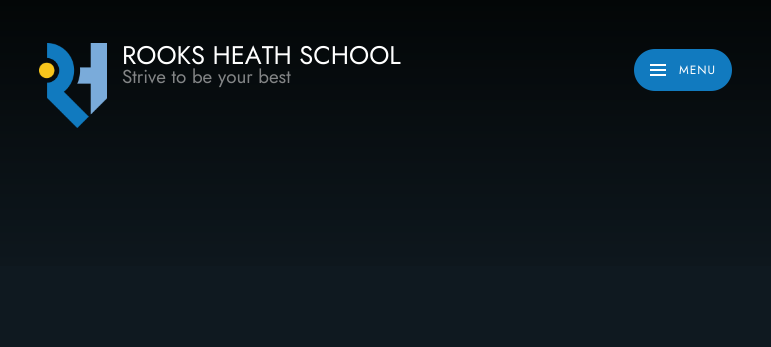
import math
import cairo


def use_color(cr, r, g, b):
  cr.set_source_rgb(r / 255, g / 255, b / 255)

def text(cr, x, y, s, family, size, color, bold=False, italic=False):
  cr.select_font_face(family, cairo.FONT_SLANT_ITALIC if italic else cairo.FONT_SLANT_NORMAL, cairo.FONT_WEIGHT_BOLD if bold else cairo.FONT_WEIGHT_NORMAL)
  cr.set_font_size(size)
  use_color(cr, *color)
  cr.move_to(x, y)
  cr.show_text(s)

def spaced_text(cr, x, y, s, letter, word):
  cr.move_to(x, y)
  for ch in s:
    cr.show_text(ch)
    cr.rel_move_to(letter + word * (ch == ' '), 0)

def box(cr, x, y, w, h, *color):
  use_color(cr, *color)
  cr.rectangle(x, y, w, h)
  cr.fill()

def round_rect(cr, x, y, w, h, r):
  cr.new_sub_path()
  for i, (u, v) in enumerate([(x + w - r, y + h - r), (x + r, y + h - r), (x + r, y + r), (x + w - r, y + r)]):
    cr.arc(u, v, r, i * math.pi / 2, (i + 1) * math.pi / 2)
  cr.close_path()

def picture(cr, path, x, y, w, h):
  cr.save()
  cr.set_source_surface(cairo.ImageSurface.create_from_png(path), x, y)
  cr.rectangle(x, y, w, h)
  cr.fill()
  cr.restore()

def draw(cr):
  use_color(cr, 15, 25, 32)
  cr.paint()
  gradient = cairo.LinearGradient(386, 0, 386, 296)
  gradient.add_color_stop_rgba(0, 0.012, 0.024, 0.027, 1)
  gradient.add_color_stop_rgba(1, 0.059, 0.098, 0.125, 1)
  cr.set_source(gradient)
  cr.rectangle(0, 0, 771, 266)
  cr.fill()
  picture(cr, "img_01.png", 39, 43, 68, 85)
  use_color(cr, 17, 122, 191)
  round_rect(cr, 634, 49, 98, 42, 21)
  cr.fill()
  box(cr, 650, 64, 16, 2, 255, 255, 255)
  box(cr, 650, 74, 16, 2, 255, 255, 255)
  box(cr, 650, 69, 16, 2, 255, 255, 255)
  text(cr, 122, 64, "ROOKS HEATH SCHOOL", "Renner", 25.5, (255, 255, 255))
  text(cr, 122, 83, "Strive to be your best", "Renner", 18.75, (131, 133, 134))
  cr.set_font_size(12)
  use_color(cr, 255, 255, 255)
  spaced_text(cr, 679, 74, "MENU", 1, 0)


surface = cairo.ImageSurface(cairo.FORMAT_RGB24, 771, 347)
cr = cairo.Context(surface)
options = cairo.FontOptions()
options.set_hint_metrics(cairo.HINT_METRICS_OFF)
options.set_hint_style(cairo.HINT_STYLE_NONE)
cr.set_font_options(options)
cr.set_miter_limit(4)
draw(cr)
surface.write_to_png("out.png")
